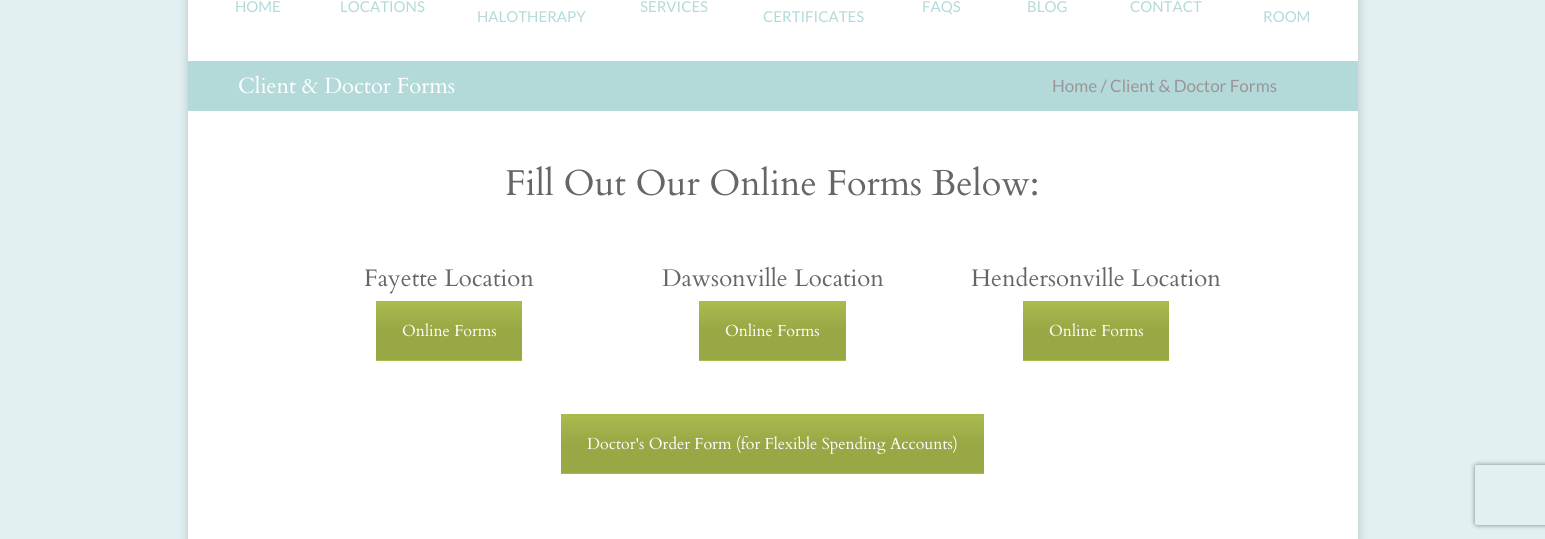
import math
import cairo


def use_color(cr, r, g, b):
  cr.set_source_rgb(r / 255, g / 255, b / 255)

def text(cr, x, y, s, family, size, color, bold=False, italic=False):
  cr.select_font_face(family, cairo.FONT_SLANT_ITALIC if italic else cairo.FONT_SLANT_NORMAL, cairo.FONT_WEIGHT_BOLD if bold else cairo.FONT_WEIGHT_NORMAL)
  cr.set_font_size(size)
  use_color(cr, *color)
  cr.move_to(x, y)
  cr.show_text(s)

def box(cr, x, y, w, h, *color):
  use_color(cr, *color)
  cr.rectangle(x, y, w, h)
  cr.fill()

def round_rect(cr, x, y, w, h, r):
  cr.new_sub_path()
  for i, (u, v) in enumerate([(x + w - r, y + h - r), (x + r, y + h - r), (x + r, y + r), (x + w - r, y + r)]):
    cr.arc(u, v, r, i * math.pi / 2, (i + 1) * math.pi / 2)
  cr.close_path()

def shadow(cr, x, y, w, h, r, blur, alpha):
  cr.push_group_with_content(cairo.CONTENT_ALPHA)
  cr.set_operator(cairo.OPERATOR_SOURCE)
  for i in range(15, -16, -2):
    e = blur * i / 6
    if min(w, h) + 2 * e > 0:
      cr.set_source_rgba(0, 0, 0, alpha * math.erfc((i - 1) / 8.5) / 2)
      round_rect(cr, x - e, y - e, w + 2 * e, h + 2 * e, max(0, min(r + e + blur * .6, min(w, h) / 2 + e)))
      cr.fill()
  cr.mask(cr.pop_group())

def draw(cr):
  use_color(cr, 226, 240, 241)
  cr.paint()
  use_color(cr, 0, 0, 0)
  shadow(cr, 188, -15, 1170, 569, 0, 5, 0.2)
  box(cr, 188, 0, 1170, 539, 255, 255, 255)
  box(cr, 188, 61, 1170, 50, 179, 218, 217)
  box(cr, 376, 301, 146, 60, 170, 186, 77)
  gradient = cairo.LinearGradient(521, 302, 521, 360)
  gradient.add_color_stop_rgba(0, 0.667, 0.729, 0.302, 1)
  gradient.add_color_stop_rgba(0.5, 0.6, 0.655, 0.271, 1)
  gradient.add_color_stop_rgba(1, 0.6, 0.655, 0.271, 1)
  cr.set_source(gradient)
  cr.rectangle(376, 306, 146, 54)
  cr.fill()
  box(cr, 699, 301, 147, 60, 170, 186, 77)
  gradient = cairo.LinearGradient(845, 302, 845, 360)
  gradient.add_color_stop_rgba(0, 0.667, 0.729, 0.302, 1)
  gradient.add_color_stop_rgba(0.5, 0.6, 0.655, 0.271, 1)
  gradient.add_color_stop_rgba(1, 0.6, 0.655, 0.271, 1)
  cr.set_source(gradient)
  cr.rectangle(699, 306, 147, 54)
  cr.fill()
  box(cr, 1023, 301, 146, 60, 170, 186, 77)
  gradient = cairo.LinearGradient(1168, 302, 1168, 360)
  gradient.add_color_stop_rgba(0, 0.667, 0.729, 0.302, 1)
  gradient.add_color_stop_rgba(0.5, 0.6, 0.655, 0.271, 1)
  gradient.add_color_stop_rgba(1, 0.6, 0.655, 0.271, 1)
  cr.set_source(gradient)
  cr.rectangle(1023, 306, 146, 54)
  cr.fill()
  box(cr, 561, 414, 423, 60, 170, 186, 77)
  gradient = cairo.LinearGradient(983, 415, 983, 473)
  gradient.add_color_stop_rgba(0, 0.667, 0.729, 0.302, 1)
  gradient.add_color_stop_rgba(0.5, 0.6, 0.655, 0.271, 1)
  gradient.add_color_stop_rgba(1, 0.6, 0.655, 0.271, 1)
  cr.set_source(gradient)
  cr.rectangle(561, 419, 423, 54)
  cr.fill()
  cr.save()
  cr.set_fill_rule(cairo.FILL_RULE_EVEN_ODD)
  cr.new_path()
  cr.move_to(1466, 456)
  cr.line_to(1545, 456)
  cr.line_to(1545, 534)
  cr.line_to(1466, 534)
  cr.close_path()
  cr.move_to(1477, 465)
  cr.line_to(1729, 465)
  cr.curve_to(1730, 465, 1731, 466, 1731, 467)
  cr.line_to(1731, 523)
  cr.curve_to(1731, 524, 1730, 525, 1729, 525)
  cr.line_to(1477, 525)
  cr.curve_to(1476, 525, 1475, 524, 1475, 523)
  cr.line_to(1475, 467)
  cr.curve_to(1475, 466, 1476, 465, 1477, 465)
  cr.close_path()
  cr.clip()
  use_color(cr, 128, 128, 128)
  shadow(cr, 1475, 465, 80, 60, 2, 2.5, 1)
  cr.restore()
  text(cr, 235, 12, "HOME", "Lato", 15, (179, 218, 217))
  text(cr, 340, 12, "LOCATIONS", "Lato", 15, (179, 218, 217))
  text(cr, 640, 12, "SERVICES", "Lato", 15, (179, 218, 217))
  text(cr, 922, 12, "FAQS", "Lato", 15, (179, 218, 217))
  text(cr, 1027, 12, "BLOG", "Lato", 15, (179, 218, 217))
  text(cr, 1130, 12, "CONTACT", "Lato", 15, (179, 218, 217))
  text(cr, 477, 22, "HALOTHERAPY", "Lato", 15, (179, 218, 217))
  text(cr, 763, 22, "CERTIFICATES", "Lato", 15, (179, 218, 217))
  text(cr, 1263, 22, "ROOM", "Lato", 15, (179, 218, 217))
  text(cr, 238, 93, "Client & Doctor Forms", "Cardo", 22, (255, 255, 255))
  text(cr, 1052, 92, "Home / Client & Doctor Forms", "Lato", 17, (155, 149, 151))
  text(cr, 505, 195, "Fill Out Our Online Forms Below:", "Cardo", 36, (102, 102, 102))
  text(cr, 364, 286, "Fayette Location", "Cardo", 24, (102, 102, 102))
  text(cr, 402, 336, "Online Forms", "Cardo", 16, (255, 255, 255))
  text(cr, 662, 286, "Dawsonville Location", "Cardo", 24, (102, 102, 102))
  text(cr, 725, 336, "Online Forms", "Cardo", 16, (255, 255, 255))
  text(cr, 971, 286, "Hendersonville Location", "Cardo", 24, (102, 102, 102))
  text(cr, 1049, 336, "Online Forms", "Cardo", 16, (255, 255, 255))
  text(cr, 587, 449, "Doctor's Order Form (for Flexible Spending Accounts)", "Cardo", 16, (255, 255, 255))


surface = cairo.ImageSurface(cairo.FORMAT_RGB24, 1545, 539)
cr = cairo.Context(surface)
options = cairo.FontOptions()
options.set_hint_metrics(cairo.HINT_METRICS_OFF)
options.set_hint_style(cairo.HINT_STYLE_NONE)
cr.set_font_options(options)
cr.set_miter_limit(4)
draw(cr)
surface.write_to_png("out.png")
